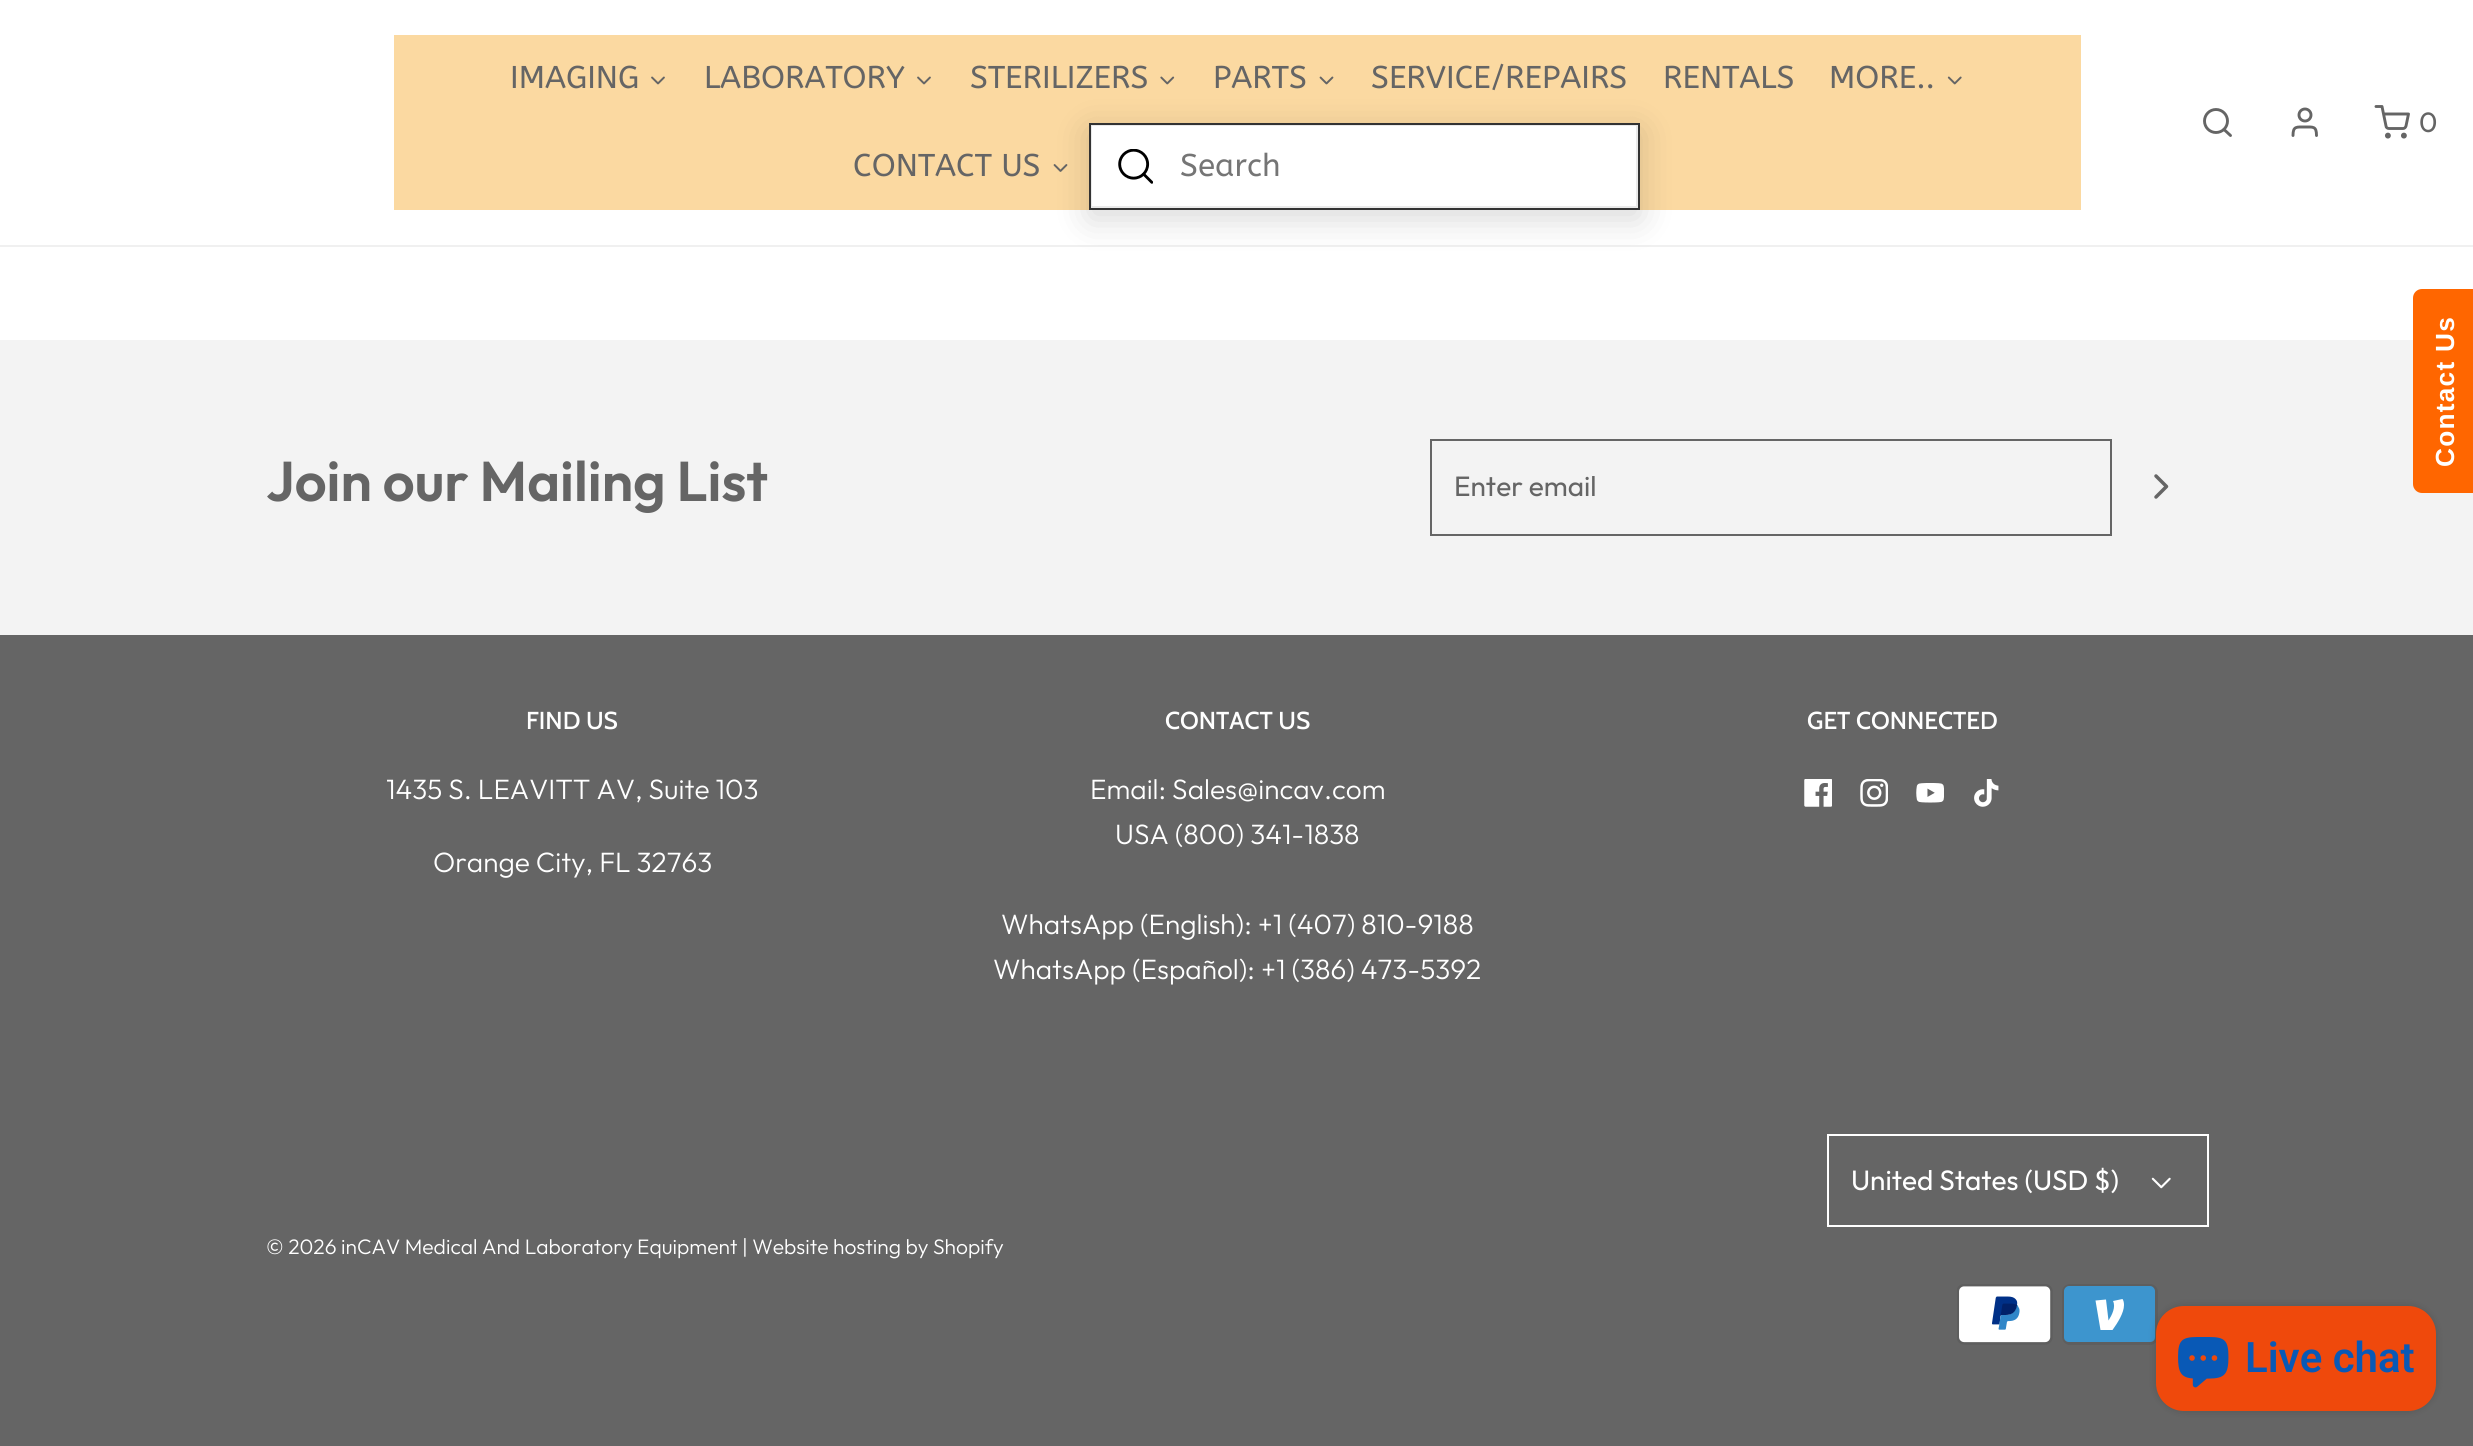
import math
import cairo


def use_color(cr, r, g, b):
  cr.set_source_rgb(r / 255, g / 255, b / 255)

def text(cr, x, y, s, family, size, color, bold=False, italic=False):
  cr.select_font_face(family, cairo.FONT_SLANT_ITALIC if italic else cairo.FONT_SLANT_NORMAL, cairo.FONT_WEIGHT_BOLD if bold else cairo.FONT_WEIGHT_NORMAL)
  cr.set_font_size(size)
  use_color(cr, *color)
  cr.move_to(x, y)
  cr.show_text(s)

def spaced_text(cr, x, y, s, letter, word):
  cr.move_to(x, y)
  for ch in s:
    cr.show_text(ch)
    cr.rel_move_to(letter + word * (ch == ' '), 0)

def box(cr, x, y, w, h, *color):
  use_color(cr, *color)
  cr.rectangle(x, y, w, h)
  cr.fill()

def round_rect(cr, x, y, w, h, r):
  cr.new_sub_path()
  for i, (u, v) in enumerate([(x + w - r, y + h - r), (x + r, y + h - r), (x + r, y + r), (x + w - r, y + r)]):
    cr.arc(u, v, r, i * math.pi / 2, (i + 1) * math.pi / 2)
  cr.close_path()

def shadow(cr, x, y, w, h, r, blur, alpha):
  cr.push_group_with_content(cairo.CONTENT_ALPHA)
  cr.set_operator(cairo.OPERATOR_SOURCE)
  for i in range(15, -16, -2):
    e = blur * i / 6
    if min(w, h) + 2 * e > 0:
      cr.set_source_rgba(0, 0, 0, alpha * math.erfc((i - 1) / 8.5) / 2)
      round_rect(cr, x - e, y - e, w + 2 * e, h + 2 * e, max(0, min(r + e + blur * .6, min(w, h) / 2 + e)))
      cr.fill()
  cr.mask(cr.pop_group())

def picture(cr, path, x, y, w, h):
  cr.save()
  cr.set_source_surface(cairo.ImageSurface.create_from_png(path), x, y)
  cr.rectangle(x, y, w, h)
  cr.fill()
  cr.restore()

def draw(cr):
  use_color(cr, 255, 255, 255)
  cr.paint()
  box(cr, 0, 245, 2473, 2, 240, 240, 240)
  box(cr, 394, 35, 1687, 175, 251, 217, 161)
  picture(cr, "img_01.png", 651, 76, 14, 9)
  picture(cr, "img_01.png", 917, 76, 14, 9)
  picture(cr, "img_02.png", 1160, 76, 15, 9)
  picture(cr, "img_03.png", 1319, 76, 15, 9)
  picture(cr, "img_04.png", 1947, 76, 15, 9)
  picture(cr, "img_05.png", 1053, 164, 15, 8)
  use_color(cr, 0, 0, 0)
  shadow(cr, 1089, 131, 551, 88, 0, 17.5, 0.15)
  use_color(cr, 255, 255, 255)
  cr.rectangle(1091, 125, 546, 82)
  cr.fill_preserve()
  use_color(cr, 234, 234, 234)
  cr.stroke()
  cr.rectangle(1090, 124, 549, 85)
  use_color(cr, 51, 51, 51)
  cr.stroke()
  picture(cr, "img_06.png", 1118, 149, 35, 35)
  cr.arc(2216, 121, 11.5, 0, 2 * math.pi)
  use_color(cr, 101, 101, 101)
  cr.set_line_width(2.9)
  cr.stroke()
  cr.new_path()
  cr.move_to(2230.5, 135.5)
  cr.line_to(2224, 129.5)
  cr.set_line_cap(cairo.LINE_CAP_ROUND)
  cr.set_line_join(cairo.LINE_JOIN_ROUND)
  cr.stroke()
  cr.new_path()
  cr.move_to(2316.5, 135.5)
  cr.curve_to(2316.5, 126, 2313, 127, 2305, 127)
  cr.curve_to(2296.5, 127, 2293, 126, 2293, 135.5)
  cr.stroke()
  cr.arc(2305, 115, 6, 0, 2 * math.pi)
  cr.set_line_cap(cairo.LINE_CAP_BUTT)
  cr.set_line_join(cairo.LINE_JOIN_MITER)
  cr.stroke()
  cr.arc(2387.9, 135.6, 1.5, 0, 2 * math.pi)
  cr.stroke()
  cr.arc(2403.9, 135.6, 1.5, 0, 2 * math.pi)
  cr.stroke()
  cr.new_path()
  cr.move_to(2376, 106.5)
  cr.line_to(2382, 106.5)
  cr.line_to(2386, 126)
  cr.curve_to(2386, 127.5, 2387.5, 128.5, 2389, 128.5)
  cr.line_to(2403, 128.5)
  cr.curve_to(2404.5, 128.5, 2405.5, 127.5, 2406, 126)
  cr.line_to(2408.5, 114)
  cr.line_to(2383.5, 114)
  cr.set_line_cap(cairo.LINE_CAP_ROUND)
  cr.set_line_join(cairo.LINE_JOIN_ROUND)
  cr.stroke()
  box(cr, 0, 340, 2473, 295, 243, 243, 243)
  cr.rectangle(1431, 440, 680, 95)
  use_color(cr, 101, 101, 101)
  cr.set_line_width(2)
  cr.set_line_cap(cairo.LINE_CAP_BUTT)
  cr.set_line_join(cairo.LINE_JOIN_MITER)
  cr.stroke()
  cr.new_path()
  cr.move_to(2156, 497)
  cr.line_to(2166.5, 486.5)
  cr.line_to(2156, 476)
  cr.set_line_width(3.5)
  cr.set_line_cap(cairo.LINE_CAP_ROUND)
  cr.set_line_join(cairo.LINE_JOIN_ROUND)
  cr.stroke()
  box(cr, 0, 635, 2473, 811, 101, 101, 101)
  picture(cr, "img_07.png", 1804, 779, 28, 28)
  picture(cr, "img_08.png", 1860, 779, 28, 28)
  picture(cr, "img_09.png", 1916, 783, 28, 20)
  picture(cr, "img_10.png", 1974, 779, 25, 28)
  cr.rectangle(1828, 1135, 380, 91)
  use_color(cr, 255, 255, 255)
  cr.set_line_width(2)
  cr.set_line_cap(cairo.LINE_CAP_BUTT)
  cr.set_line_join(cairo.LINE_JOIN_MITER)
  cr.stroke()
  picture(cr, "img_11.png", 2151, 1177, 20, 12)
  picture(cr, "img_12.png", 1957, 1284, 96, 61)
  use_color(cr, 94, 94, 94)
  round_rect(cr, 2062, 1284, 96, 61, 8)
  cr.fill()
  use_color(cr, 61, 149, 206)
  cr.set_fill_rule(cairo.FILL_RULE_EVEN_ODD)
  cr.new_path()
  cr.move_to(2150, 1286)
  cr.curve_to(2153, 1286, 2155, 1289, 2155, 1291)
  cr.line_to(2155, 1337)
  cr.curve_to(2155, 1340, 2153, 1342, 2150, 1342)
  cr.line_to(2069, 1342)
  cr.curve_to(2066, 1342, 2064, 1340, 2064, 1337)
  cr.line_to(2064, 1291)
  cr.curve_to(2064, 1289, 2066, 1286, 2069, 1286)
  cr.line_to(2150, 1286)
  cr.fill()
  use_color(cr, 255, 255, 255)
  cr.set_fill_rule(cairo.FILL_RULE_WINDING)
  cr.new_path()
  cr.move_to(2124, 1305)
  cr.curve_to(2124, 1313, 2117.5, 1323, 2112.5, 1330)
  cr.line_to(2100.5, 1330)
  cr.line_to(2095.5, 1300.5)
  cr.line_to(2106, 1299.5)
  cr.line_to(2108.5, 1320.5)
  cr.curve_to(2112, 1315, 2116, 1307, 2113, 1301)
  cr.line_to(2122.5, 1299)
  cr.curve_to(2123.5, 1300.5, 2124, 1302.5, 2124, 1305)
  cr.close_path()
  cr.fill()
  use_color(cr, 255, 102, 0)
  cr.new_path()
  cr.move_to(2413, 484)
  cr.line_to(2413, 298)
  cr.curve_to(2413, 293, 2417, 289, 2422, 289)
  cr.line_to(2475, 289)
  cr.line_to(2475, 493)
  cr.line_to(2422, 493)
  cr.curve_to(2417, 493, 2413, 489, 2413, 484)
  cr.close_path()
  cr.fill()
  use_color(cr, 0, 0, 0)
  shadow(cr, 2156, 1306, 280, 105, 28, 4.5, 0.15)
  use_color(cr, 239, 73, 12)
  round_rect(cr, 2156, 1306, 280, 105, 28)
  cr.fill()
  picture(cr, "img_13.png", 2178, 1337, 51, 51)
  text(cr, 510, 88, "IMAGING", "ABeeZee", 31.5, (101, 101, 101))
  text(cr, 704, 88, "LABORATORY", "ABeeZee", 31.5, (101, 101, 101))
  text(cr, 970, 88, "STERILIZERS", "ABeeZee", 31.5, (101, 101, 101))
  text(cr, 1213, 88, "PARTS", "ABeeZee", 31.5, (101, 101, 101))
  text(cr, 1371, 88, "SERVICE/REPAIRS", "ABeeZee", 31.5, (101, 101, 101))
  text(cr, 1663, 88, "RENTALS", "ABeeZee", 31.5, (101, 101, 101))
  text(cr, 1829, 88, "MORE..", "ABeeZee", 31.5, (101, 101, 101))
  text(cr, 853, 176, "CONTACT US", "ABeeZee", 31.5, (101, 101, 101))
  text(cr, 1180, 176, "Search", "ABeeZee", 31.5, (117, 117, 117))
  text(cr, 2419, 132, "0", "Outfit", 28, (101, 101, 101))
  text(cr, 266, 501, "Join our Mailing List", "Outfit SemiBold", 56, (101, 101, 101))
  text(cr, 1454, 496, "Enter email", "Outfit", 28, (101, 101, 101))
  text(cr, 526, 729, "FIND US", "Cabin Medium", 24.5, (255, 255, 255))
  text(cr, 386, 799, "1435 S. LEAVITT AV, Suite 103", "Outfit Light", 28, (255, 255, 255))
  text(cr, 433, 872, "Orange City, FL 32763", "Outfit Light", 28, (255, 255, 255))
  text(cr, 1165, 729, "CONTACT US", "Cabin Medium", 24.5, (255, 255, 255))
  text(cr, 1090, 799, "Email: Sales@incav.com", "Outfit Light", 28, (255, 255, 255))
  text(cr, 1115, 844, "USA (800) 341-1838", "Outfit Light", 28, (255, 255, 255))
  text(cr, 1001, 934, "WhatsApp (English): +1 (407) 810-9188", "Outfit Light", 28, (255, 255, 255))
  text(cr, 993, 979, "WhatsApp (Español): +1 (386) 473-5392", "Outfit Light", 28, (255, 255, 255))
  text(cr, 1807, 729, "GET CONNECTED", "Cabin Medium", 24.5, (255, 255, 255))
  text(cr, 1851, 1190, "United States (USD $)", "Outfit", 28, (255, 255, 255))
  text(cr, 266, 1254, "© 2026 inCAV Medical And Laboratory Equipment | Website hosting by Shopify", "Outfit Light", 21, (255, 255, 255))
  cr.select_font_face("Liberation Sans", cairo.FONT_SLANT_NORMAL, cairo.FONT_WEIGHT_BOLD)
  cr.set_font_size(26.25)
  cr.save()
  cr.translate(2454, 467)
  cr.rotate(-90 * math.pi / 180)
  spaced_text(cr, 0, 0, "Contact Us", 1.25, 0)
  cr.restore()
  text(cr, 2245, 1372, "Live chat", "Roboto SemiBold", 42, (9, 89, 182))


surface = cairo.ImageSurface(cairo.FORMAT_RGB24, 2473, 1446)
cr = cairo.Context(surface)
options = cairo.FontOptions()
options.set_hint_metrics(cairo.HINT_METRICS_OFF)
options.set_hint_style(cairo.HINT_STYLE_NONE)
cr.set_font_options(options)
cr.set_miter_limit(4)
draw(cr)
surface.write_to_png("out.png")
